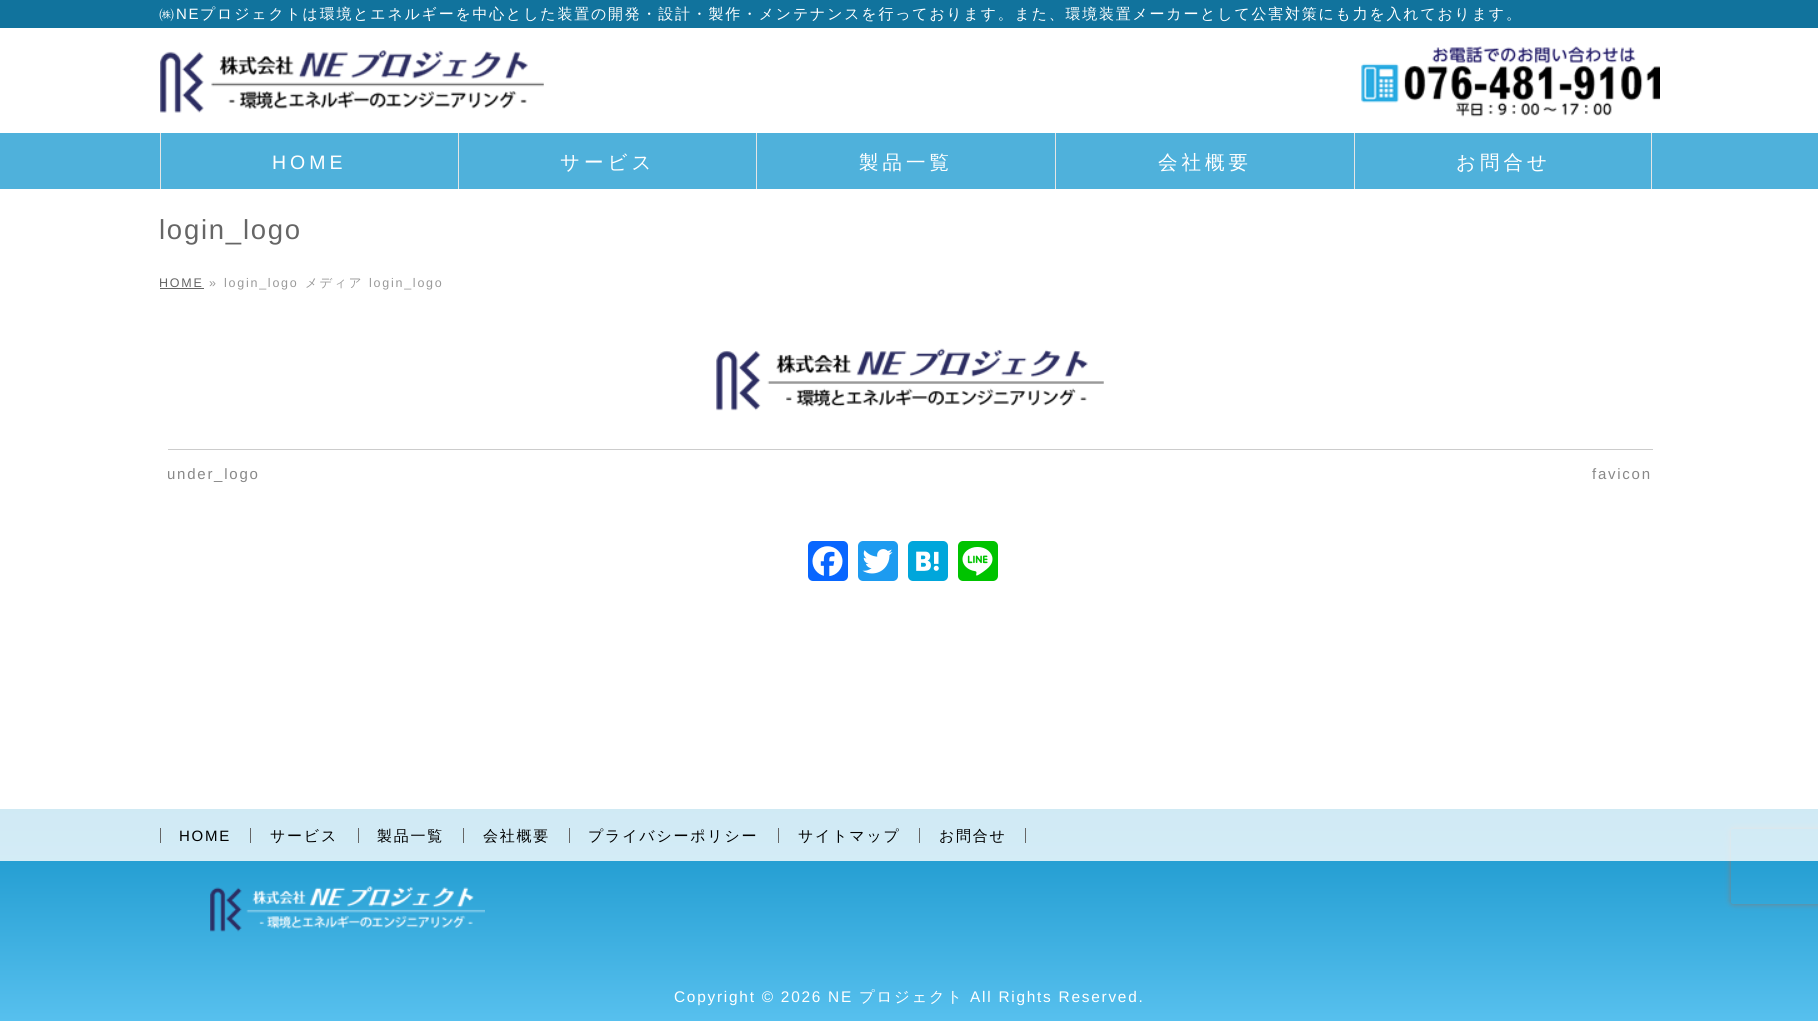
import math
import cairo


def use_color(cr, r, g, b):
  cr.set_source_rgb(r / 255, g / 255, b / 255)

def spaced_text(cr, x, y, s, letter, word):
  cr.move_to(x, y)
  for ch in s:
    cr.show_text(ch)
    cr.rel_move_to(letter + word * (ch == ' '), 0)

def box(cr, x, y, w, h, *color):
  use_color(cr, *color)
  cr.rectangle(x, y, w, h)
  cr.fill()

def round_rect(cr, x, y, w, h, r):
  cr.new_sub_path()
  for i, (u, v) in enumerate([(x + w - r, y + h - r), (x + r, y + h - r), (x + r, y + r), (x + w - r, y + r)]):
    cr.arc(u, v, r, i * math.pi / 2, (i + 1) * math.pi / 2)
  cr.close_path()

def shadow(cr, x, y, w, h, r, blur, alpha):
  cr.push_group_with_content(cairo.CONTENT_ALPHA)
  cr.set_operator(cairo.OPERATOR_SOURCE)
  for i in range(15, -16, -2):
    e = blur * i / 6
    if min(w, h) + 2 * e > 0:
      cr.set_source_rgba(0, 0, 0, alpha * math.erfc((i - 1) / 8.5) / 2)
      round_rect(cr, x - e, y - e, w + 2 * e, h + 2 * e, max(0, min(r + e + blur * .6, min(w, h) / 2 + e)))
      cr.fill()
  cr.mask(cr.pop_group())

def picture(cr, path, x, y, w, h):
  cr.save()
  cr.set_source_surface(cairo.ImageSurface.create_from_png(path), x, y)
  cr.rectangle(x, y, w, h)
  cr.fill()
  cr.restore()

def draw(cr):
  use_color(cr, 255, 255, 255)
  cr.paint()
  box(cr, 0, 0, 1818, 28, 17, 115, 157)
  picture(cr, "img_01.png", 160, 50, 384, 63)
  picture(cr, "img_02.png", 1361, 46, 299, 71)
  box(cr, 0, 133, 1818, 56, 79, 177, 219)
  box(cr, 160, 133, 1, 56, 229, 229, 229)
  box(cr, 458, 133, 1, 56, 229, 229, 229)
  box(cr, 756, 133, 1, 56, 229, 229, 229)
  box(cr, 1055, 133, 1, 56, 229, 229, 229)
  box(cr, 1354, 133, 1, 56, 229, 229, 229)
  box(cr, 1651, 133, 1, 56, 229, 229, 229)
  box(cr, 160, 288, 44, 1, 102, 102, 102)
  picture(cr, "img_03.png", 716, 348, 388, 63)
  box(cr, 168, 449, 1485, 1, 204, 204, 204)
  use_color(cr, 8, 102, 255)
  round_rect(cr, 808, 541, 40, 40, 5)
  cr.fill()
  picture(cr, "img_04.png", 812, 546, 31, 31)
  use_color(cr, 29, 155, 240)
  round_rect(cr, 858, 541, 40, 40, 5)
  cr.fill()
  picture(cr, "img_05.png", 862, 549, 31, 25)
  use_color(cr, 0, 166, 219)
  round_rect(cr, 908, 541, 40, 40, 5)
  cr.fill()
  picture(cr, "img_06.png", 916, 551, 23, 20)
  use_color(cr, 0, 195, 0)
  round_rect(cr, 958, 541, 40, 40, 5)
  cr.fill()
  picture(cr, "img_07.png", 962, 547, 31, 29)
  gradient = cairo.LinearGradient(909, 809, 909, 1021)
  gradient.add_color_stop_rgba(0, 0.082, 0.58, 0.792, 1)
  gradient.add_color_stop_rgba(1, 0.341, 0.753, 0.933, 1)
  cr.set_source(gradient)
  cr.rectangle(0, 809, 1818, 212)
  cr.fill()
  cr.save()
  cr.set_fill_rule(cairo.FILL_RULE_EVEN_ODD)
  cr.new_path()
  cr.move_to(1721, 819)
  cr.line_to(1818, 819)
  cr.line_to(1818, 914)
  cr.line_to(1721, 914)
  cr.close_path()
  cr.move_to(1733.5, 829)
  cr.line_to(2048.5, 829)
  cr.curve_to(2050, 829, 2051, 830, 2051, 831.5)
  cr.line_to(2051, 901.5)
  cr.curve_to(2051, 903, 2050, 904, 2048.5, 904)
  cr.line_to(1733.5, 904)
  cr.curve_to(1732, 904, 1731, 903, 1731, 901.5)
  cr.line_to(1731, 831.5)
  cr.curve_to(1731, 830, 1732, 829, 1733.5, 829)
  cr.close_path()
  cr.clip()
  use_color(cr, 128, 128, 128)
  shadow(cr, 1731, 829, 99, 75, 2.5, 3, 1)
  cr.restore()
  cr.set_source_rgba(1, 1, 1, 0.8)
  cr.rectangle(0, 809, 1818, 52)
  cr.fill()
  box(cr, 160, 828, 1, 15, 102, 102, 102)
  box(cr, 250, 828, 1, 15, 102, 102, 102)
  box(cr, 358, 828, 1, 15, 102, 102, 102)
  box(cr, 463, 828, 1, 15, 102, 102, 102)
  box(cr, 569, 828, 1, 15, 102, 102, 102)
  box(cr, 778, 828, 1, 15, 102, 102, 102)
  box(cr, 919, 828, 1, 15, 102, 102, 102)
  box(cr, 1025, 828, 1, 15, 102, 102, 102)
  picture(cr, "img_08.png", 210, 886, 275, 46)
  cr.select_font_face("WenQuanYi Zen Hei Medium")
  cr.set_font_size(15)
  use_color(cr, 255, 255, 255)
  spaced_text(cr, 159, 19, "㈱", 1.75, 0)
  cr.select_font_face("Liberation Sans")
  spaced_text(cr, 176, 19, "NE", 1.75, 0)
  cr.select_font_face("WenQuanYi Zen Hei Medium")
  spaced_text(cr, 200, 19, "プロジェクトは環境とエネルギーを中心とした装置の開発・設計・製作・メンテナンスを行っております。また、環境装置メーカーとして公害対策にも力を入れております。", 1.75, 0)
  cr.select_font_face("Liberation Sans")
  cr.set_font_size(19.5)
  spaced_text(cr, 272, 169, "HOME", 4, 0)
  cr.select_font_face("WenQuanYi Zen Hei Medium")
  spaced_text(cr, 560, 169, "サービス", 4, 0)
  spaced_text(cr, 859, 169, "製品一覧", 4, 0)
  spaced_text(cr, 1158, 169, "会社概要", 4, 0)
  spaced_text(cr, 1456, 169, "お問合せ", 4, 0)
  cr.select_font_face("Liberation Sans")
  cr.set_font_size(27.5)
  use_color(cr, 102, 102, 102)
  spaced_text(cr, 159, 239, "login_logo", 1.75, 0)
  cr.set_font_size(12.5)
  spaced_text(cr, 159, 287, "HOME", 1.75, 0)
  use_color(cr, 153, 153, 153)
  spaced_text(cr, 209, 287, "»", 1.75, 0)
  spaced_text(cr, 224, 287, "login_logo", 1.75, 0)
  cr.select_font_face("WenQuanYi Zen Hei Medium")
  spaced_text(cr, 305, 287, "メディア", 1.75, 0)
  cr.select_font_face("Liberation Sans")
  spaced_text(cr, 369, 287, "login_logo", 1.75, 0)
  cr.save()
  cr.rectangle(168, 450, 1485, 54)
  cr.clip()
  cr.set_font_size(15)
  use_color(cr, 136, 136, 136)
  spaced_text(cr, 167, 479, "under_logo", 1.75, 0)
  cr.restore()
  cr.set_font_size(15)
  use_color(cr, 136, 136, 136)
  spaced_text(cr, 1592, 479, "favicon", 1.75, 0)
  use_color(cr, 0, 0, 0)
  spaced_text(cr, 179, 841, "HOME", 1.75, 0)
  cr.select_font_face("WenQuanYi Zen Hei Medium")
  spaced_text(cr, 270, 841, "サービス", 1.75, 0)
  spaced_text(cr, 377, 841, "製品一覧", 1.75, 0)
  spaced_text(cr, 483, 841, "会社概要", 1.75, 0)
  spaced_text(cr, 588, 841, "プライバシーポリシー", 1.75, 0)
  spaced_text(cr, 798, 841, "サイトマップ", 1.75, 0)
  cr.save()
  cr.rectangle(161, 828, 1499, 15)
  cr.clip()
  spaced_text(cr, 939, 841, "お問合せ", 1.75, 0)
  cr.restore()
  cr.select_font_face("Liberation Sans")
  cr.set_font_size(15.4)
  use_color(cr, 255, 255, 255)
  spaced_text(cr, 674, 1002, "Copyright © 2026 NE", 1.75, 0)
  cr.select_font_face("WenQuanYi Zen Hei Medium")
  spaced_text(cr, 859, 1002, "プロジェクト", 1.75, 0)
  cr.select_font_face("Liberation Sans")
  spaced_text(cr, 970, 1002, "All Rights Reserved.", 1.75, 0)


surface = cairo.ImageSurface(cairo.FORMAT_RGB24, 1818, 1021)
cr = cairo.Context(surface)
options = cairo.FontOptions()
options.set_hint_metrics(cairo.HINT_METRICS_OFF)
options.set_hint_style(cairo.HINT_STYLE_NONE)
cr.set_font_options(options)
cr.set_miter_limit(4)
draw(cr)
surface.write_to_png("out.png")
